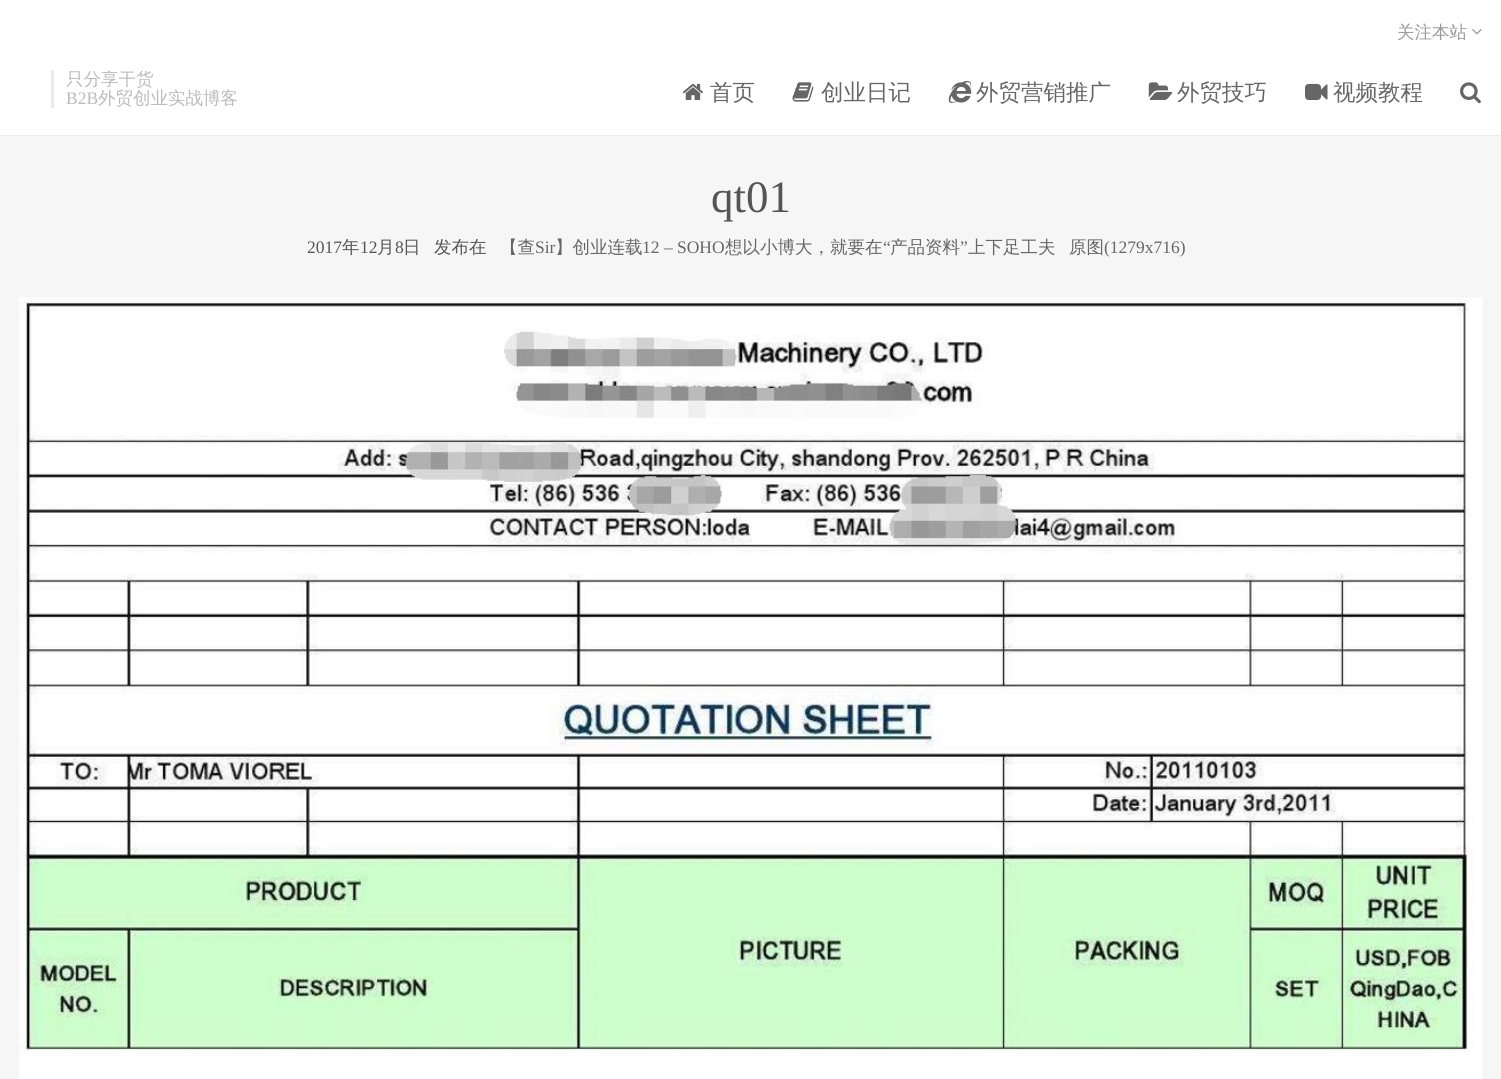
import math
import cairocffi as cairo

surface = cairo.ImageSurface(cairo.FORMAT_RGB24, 1501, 1079)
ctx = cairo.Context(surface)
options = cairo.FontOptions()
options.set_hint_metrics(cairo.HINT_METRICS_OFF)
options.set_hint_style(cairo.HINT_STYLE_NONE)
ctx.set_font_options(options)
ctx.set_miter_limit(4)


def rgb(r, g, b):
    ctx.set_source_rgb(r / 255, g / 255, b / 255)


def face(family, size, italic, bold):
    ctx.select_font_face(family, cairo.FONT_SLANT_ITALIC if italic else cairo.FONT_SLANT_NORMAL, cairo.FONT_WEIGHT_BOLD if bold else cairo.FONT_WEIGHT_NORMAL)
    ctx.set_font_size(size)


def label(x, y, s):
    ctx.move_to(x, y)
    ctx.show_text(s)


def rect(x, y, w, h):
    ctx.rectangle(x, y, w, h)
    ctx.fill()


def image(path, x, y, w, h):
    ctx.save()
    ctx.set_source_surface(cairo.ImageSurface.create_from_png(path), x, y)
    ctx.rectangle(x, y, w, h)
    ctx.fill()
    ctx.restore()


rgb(246, 246, 246)
ctx.paint()
rgb(255, 255, 255)
rect(0, 0, 1501, 135)
rgb(235, 235, 235)
rect(0, 135, 1501, 1)
face('WenQuanYi Zen Hei Medium', 17.5, 0, 0)
rgb(153, 153, 153)
label(1397, 38, '关注本站')
image('image0.png', 1472, 29, 10, 6)
rgb(234, 234, 234)
rect(51, 70, 3, 38)
rgb(187, 187, 187)
label(66, 85, '只分享干货')
face('Liberation Serif', 17.5, 0, 0)
label(66, 104, 'B2B')
face('WenQuanYi Zen Hei Medium', 17.5, 0, 0)
label(98, 104, '外贸创业实战博客')
image('image1.png', 682, 83, 21, 17)
face('WenQuanYi Zen Hei Medium', 22.5, 0, 0)
rgb(102, 102, 102)
label(710, 100, '首页')
image('image2.png', 792, 82, 22, 20)
label(821, 100, '创业日记')
image('image3.png', 948, 80, 24, 23)
label(976, 100, '外贸营销推广')
image('image4.png', 1148, 82, 25, 18)
label(1177, 100, '外贸技巧')
image('image5.png', 1305, 83, 23, 17)
label(1333, 100, '视频教程')
image('image6.png', 1460, 82, 21, 22)
face('Liberation Serif', 45, 0, 0)
rgb(85, 85, 85)
label(711, 212, 'qt01')
face('Liberation Serif', 17.5, 0, 0)
label(307, 253, '2017')
face('WenQuanYi Zen Hei Medium', 17.5, 0, 0)
label(342, 253, '年')
face('Liberation Serif', 17.5, 0, 0)
label(360, 253, '12')
face('WenQuanYi Zen Hei Medium', 17.5, 0, 0)
label(377, 253, '月')
face('Liberation Serif', 17.5, 0, 0)
label(395, 253, '8')
face('WenQuanYi Zen Hei Medium', 17.5, 0, 0)
label(403, 253, '日')
label(434, 253, '发布在')
rgb(102, 102, 102)
label(500, 253, '【查')
face('Liberation Serif', 17.5, 0, 0)
label(535, 253, 'Sir')
face('WenQuanYi Zen Hei Medium', 17.5, 0, 0)
label(555, 253, '】创业连载')
face('Liberation Serif', 17.5, 0, 0)
label(642, 253, '12 – SOHO')
face('WenQuanYi Zen Hei Medium', 17.5, 0, 0)
label(725, 253, '想以小博大，就要在')
face('Liberation Serif', 17.5, 0, 0)
label(883, 253, '“')
face('WenQuanYi Zen Hei Medium', 17.5, 0, 0)
label(890, 253, '产品资料')
face('Liberation Serif', 17.5, 0, 0)
label(960, 253, '”')
face('WenQuanYi Zen Hei Medium', 17.5, 0, 0)
label(968, 253, '上下足工夫')
label(1069, 253, '原图')
face('Liberation Serif', 17.5, 0, 0)
label(1104, 253, '(1279x716)')
image('image7.png', 19, 297, 1464, 782)
surface.write_to_png('render.png')
